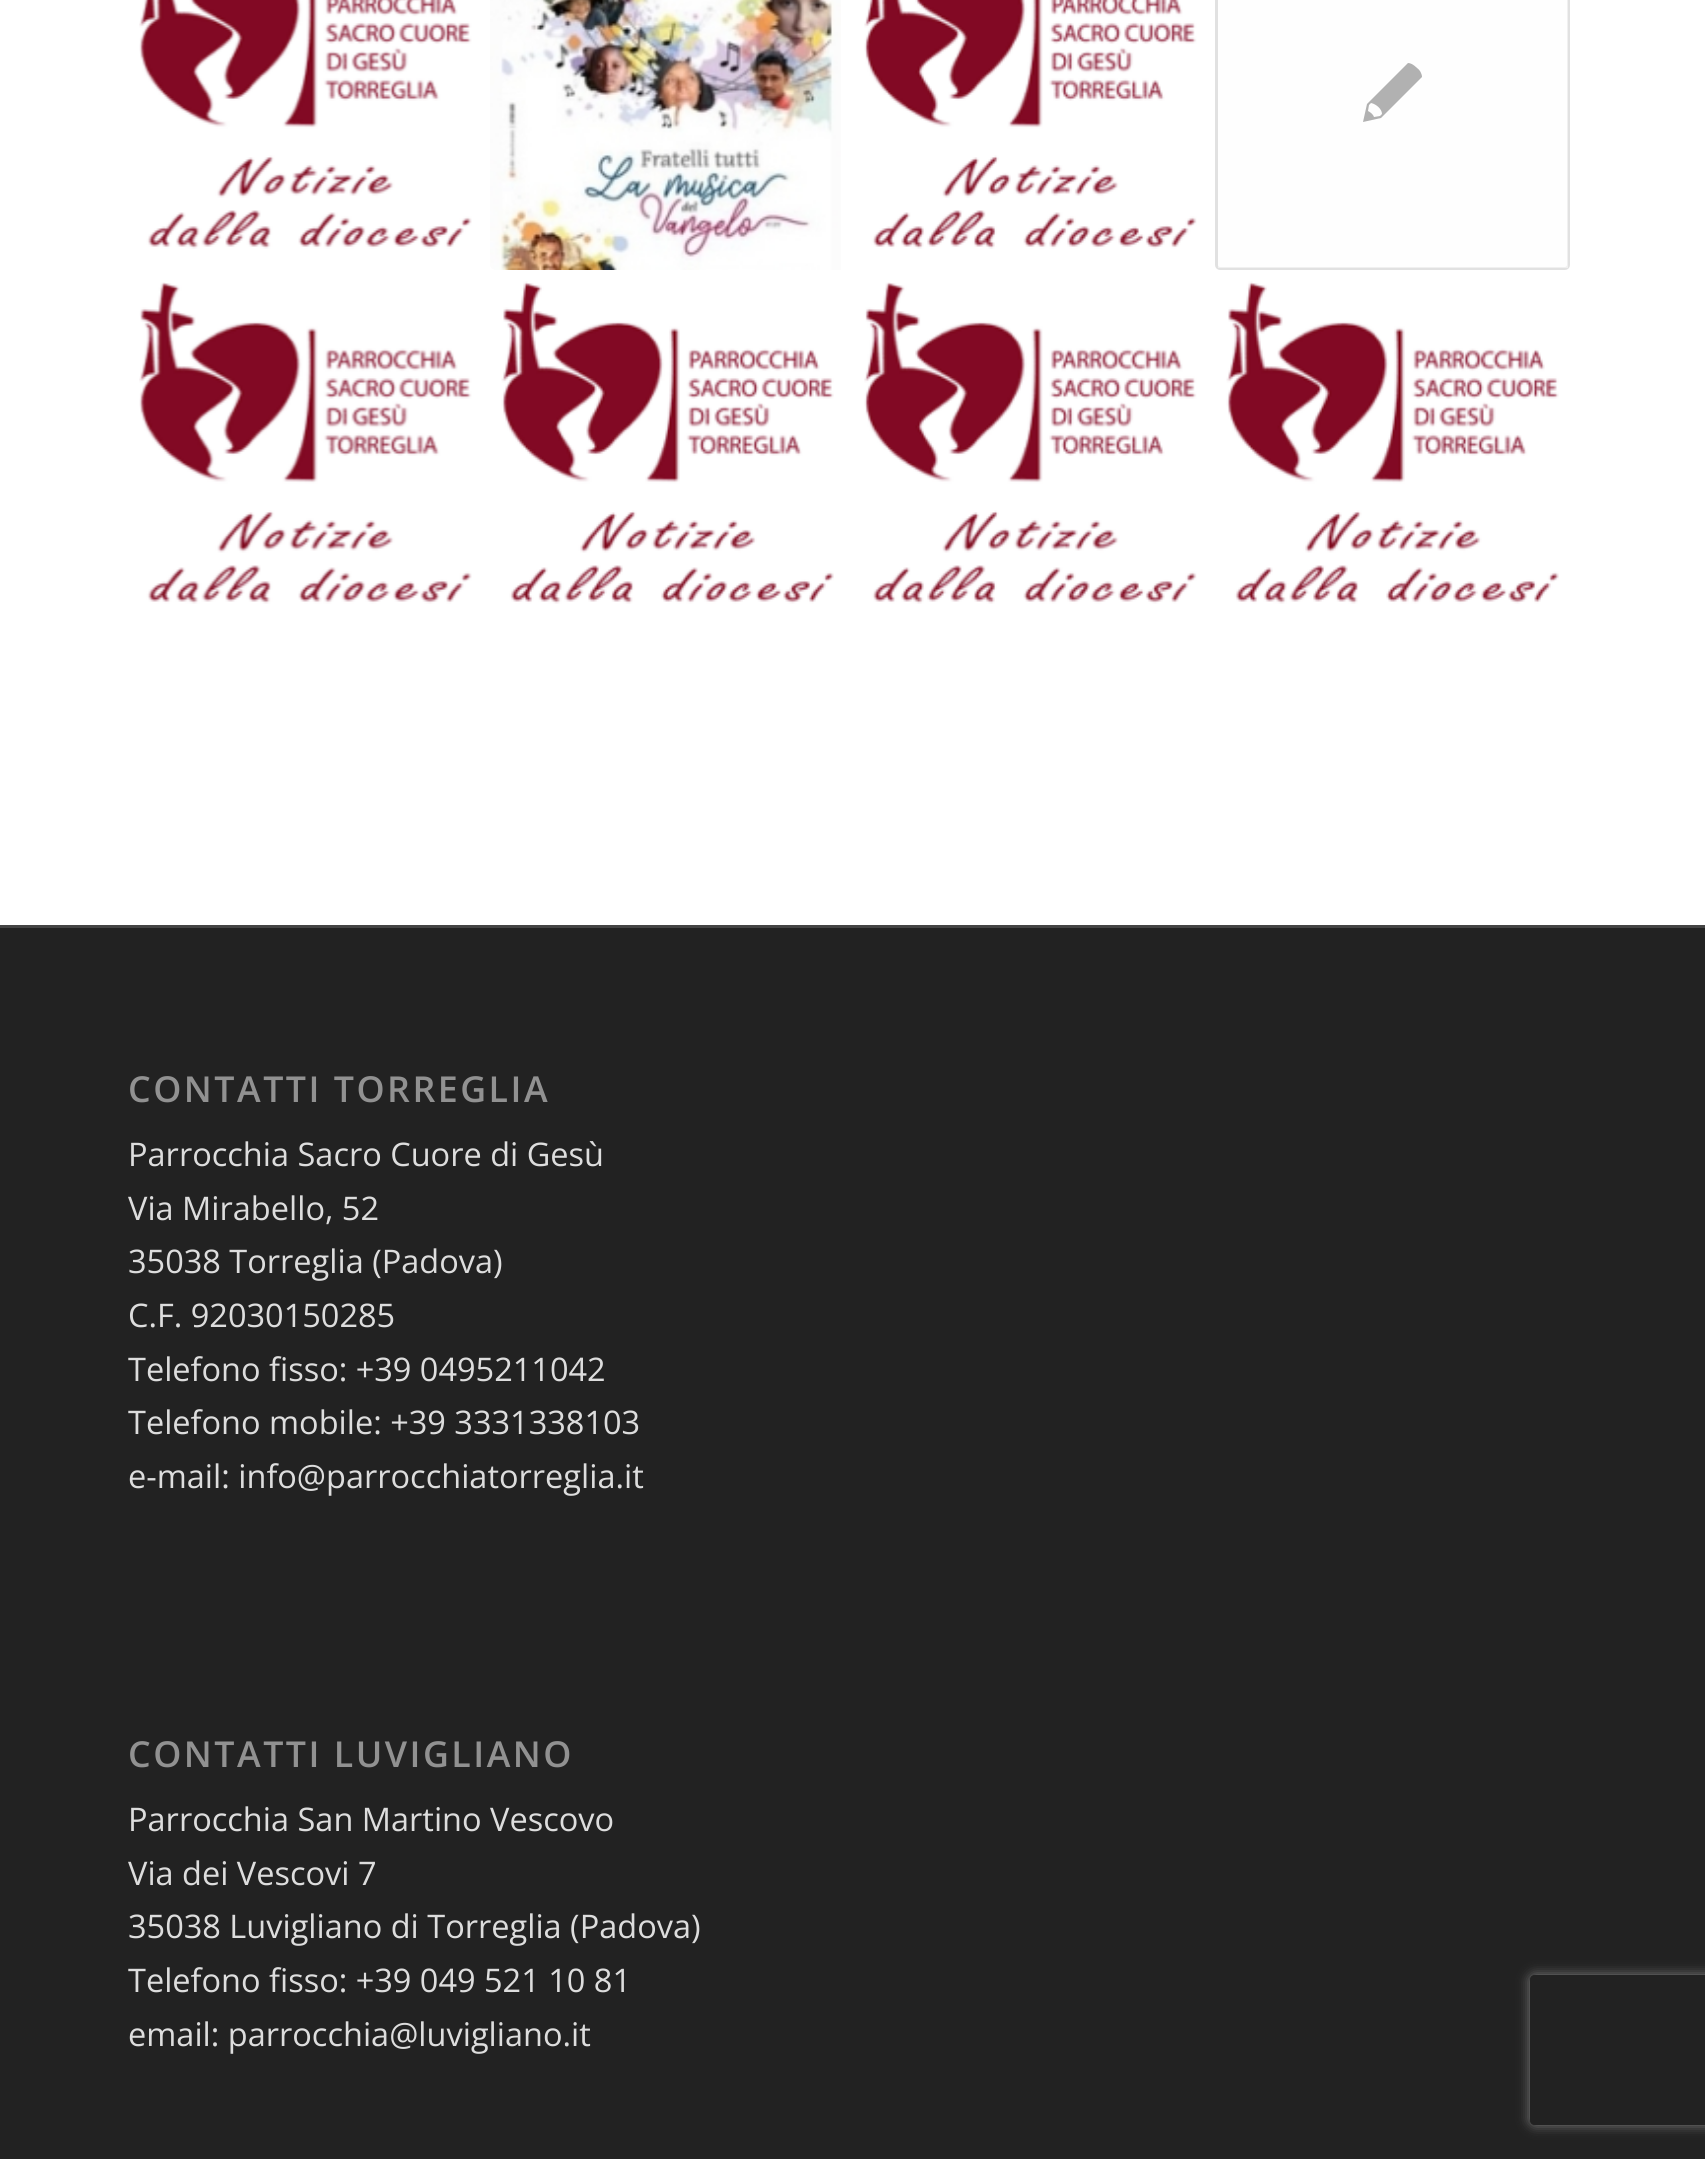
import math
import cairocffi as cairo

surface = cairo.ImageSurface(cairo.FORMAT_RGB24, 1705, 2159)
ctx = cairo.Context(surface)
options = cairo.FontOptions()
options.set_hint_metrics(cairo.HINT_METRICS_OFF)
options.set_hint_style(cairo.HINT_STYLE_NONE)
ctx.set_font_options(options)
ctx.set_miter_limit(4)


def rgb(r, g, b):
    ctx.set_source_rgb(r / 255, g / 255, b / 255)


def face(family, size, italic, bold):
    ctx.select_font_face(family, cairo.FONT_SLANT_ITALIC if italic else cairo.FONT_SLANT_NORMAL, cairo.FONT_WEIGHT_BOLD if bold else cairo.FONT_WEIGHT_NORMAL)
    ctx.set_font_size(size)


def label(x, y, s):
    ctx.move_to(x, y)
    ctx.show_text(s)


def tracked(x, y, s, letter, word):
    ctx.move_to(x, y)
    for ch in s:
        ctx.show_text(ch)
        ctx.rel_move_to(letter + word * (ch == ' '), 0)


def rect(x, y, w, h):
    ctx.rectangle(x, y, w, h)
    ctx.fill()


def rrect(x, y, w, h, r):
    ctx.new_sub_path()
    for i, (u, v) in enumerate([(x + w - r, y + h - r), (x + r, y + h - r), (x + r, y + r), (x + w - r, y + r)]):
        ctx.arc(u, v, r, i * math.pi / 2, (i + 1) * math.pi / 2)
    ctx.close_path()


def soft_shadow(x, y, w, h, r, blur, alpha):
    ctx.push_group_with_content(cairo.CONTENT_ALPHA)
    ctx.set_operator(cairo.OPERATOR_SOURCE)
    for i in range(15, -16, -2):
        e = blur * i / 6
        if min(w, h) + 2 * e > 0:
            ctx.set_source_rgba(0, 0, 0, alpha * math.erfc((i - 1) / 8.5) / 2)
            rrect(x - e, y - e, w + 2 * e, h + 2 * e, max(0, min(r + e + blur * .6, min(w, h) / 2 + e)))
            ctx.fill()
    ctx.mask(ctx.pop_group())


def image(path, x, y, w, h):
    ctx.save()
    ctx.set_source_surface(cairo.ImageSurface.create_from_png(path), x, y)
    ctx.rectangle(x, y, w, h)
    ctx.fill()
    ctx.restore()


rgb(255, 255, 255)
ctx.paint()
image('image0.png', 139, 0, 333, 249)
image('image1.png', 490, 0, 351, 270)
image('image2.png', 864, 0, 333, 249)
rgb(252, 252, 252)
rrect(1216.5, -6.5, 352, 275, 3.5)
ctx.fill_preserve()
rgb(225, 225, 225)
ctx.set_line_width(3)
ctx.stroke()
ctx.set_source_rgba(1, 1, 1, 0.5)
rect(1218, 0, 350, 268)
rgb(177, 177, 177)
ctx.new_path()
ctx.move_to(1417, 68)
ctx.curve_to(1420, 70, 1422, 74, 1422, 77)
ctx.line_to(1381, 118)
ctx.line_to(1363, 122)
ctx.line_to(1367, 104)
ctx.line_to(1408, 63)
ctx.curve_to(1410, 63, 1413, 64, 1417, 68)
ctx.close_path()
ctx.move_to(1380, 116)
ctx.line_to(1382, 114)
ctx.curve_to(1382, 109, 1376, 104, 1371, 103)
ctx.line_to(1369, 105)
ctx.line_to(1368, 111)
ctx.curve_to(1370, 112, 1373, 114, 1374, 117)
ctx.close_path()
ctx.fill()
image('image3.png', 139, 282, 333, 322)
image('image4.png', 501, 281, 333, 323)
image('image5.png', 864, 282, 333, 322)
image('image4.png', 1226, 281, 333, 323)
rgb(34, 34, 34)
rect(0, 928, 1705, 1231)
rgb(68, 68, 68)
rect(0, 925, 1705, 3)
face('Open Sans SemiBold', 35.75, 0, 0)
rgb(145, 145, 145)
tracked(128, 1102, 'CONTATTI TORREGLIA', 2.5, 0)
face('Open Sans', 32.5, 0, 0)
rgb(221, 221, 221)
label(128, 1166, 'Parrocchia Sacro Cuore di Gesù')
label(128, 1220, 'Via Mirabello, 52')
label(128, 1273, '35038 Torreglia (Padova)')
label(128, 1327, 'C.F. 92030150285')
label(128, 1381, 'Telefono fisso: +39 0495211042')
label(128, 1434, 'Telefono mobile: +39 3331338103')
label(128, 1488, 'e-mail: info@parrocchiatorreglia.it')
face('Open Sans SemiBold', 35.75, 0, 0)
rgb(145, 145, 145)
tracked(128, 1767, 'CONTATTI LUVIGLIANO', 2.5, 0)
face('Open Sans', 32.5, 0, 0)
rgb(221, 221, 221)
label(128, 1831, 'Parrocchia San Martino Vescovo')
label(128, 1885, 'Via dei Vescovi 7')
label(128, 1938, '35038 Luvigliano di Torreglia (Padova)')
label(128, 1992, 'Telefono fisso: +39 049 521 10 81')
label(128, 2046, 'email: parrocchia@luvigliano.it')
ctx.save()
ctx.set_fill_rule(cairo.FILL_RULE_EVEN_ODD)
ctx.new_path()
ctx.move_to(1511, 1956)
ctx.line_to(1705, 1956)
ctx.line_to(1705, 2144)
ctx.line_to(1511, 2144)
ctx.close_path()
ctx.move_to(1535, 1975)
ctx.line_to(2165, 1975)
ctx.curve_to(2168, 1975, 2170, 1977, 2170, 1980)
ctx.line_to(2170, 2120)
ctx.curve_to(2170, 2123, 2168, 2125, 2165, 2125)
ctx.line_to(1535, 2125)
ctx.curve_to(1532, 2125, 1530, 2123, 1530, 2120)
ctx.line_to(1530, 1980)
ctx.curve_to(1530, 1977, 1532, 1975, 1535, 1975)
ctx.close_path()
ctx.clip()
rgb(128, 128, 128)
soft_shadow(1530, 1975, 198, 150, 5, 6, 1)
ctx.restore()
surface.write_to_png('render.png')
